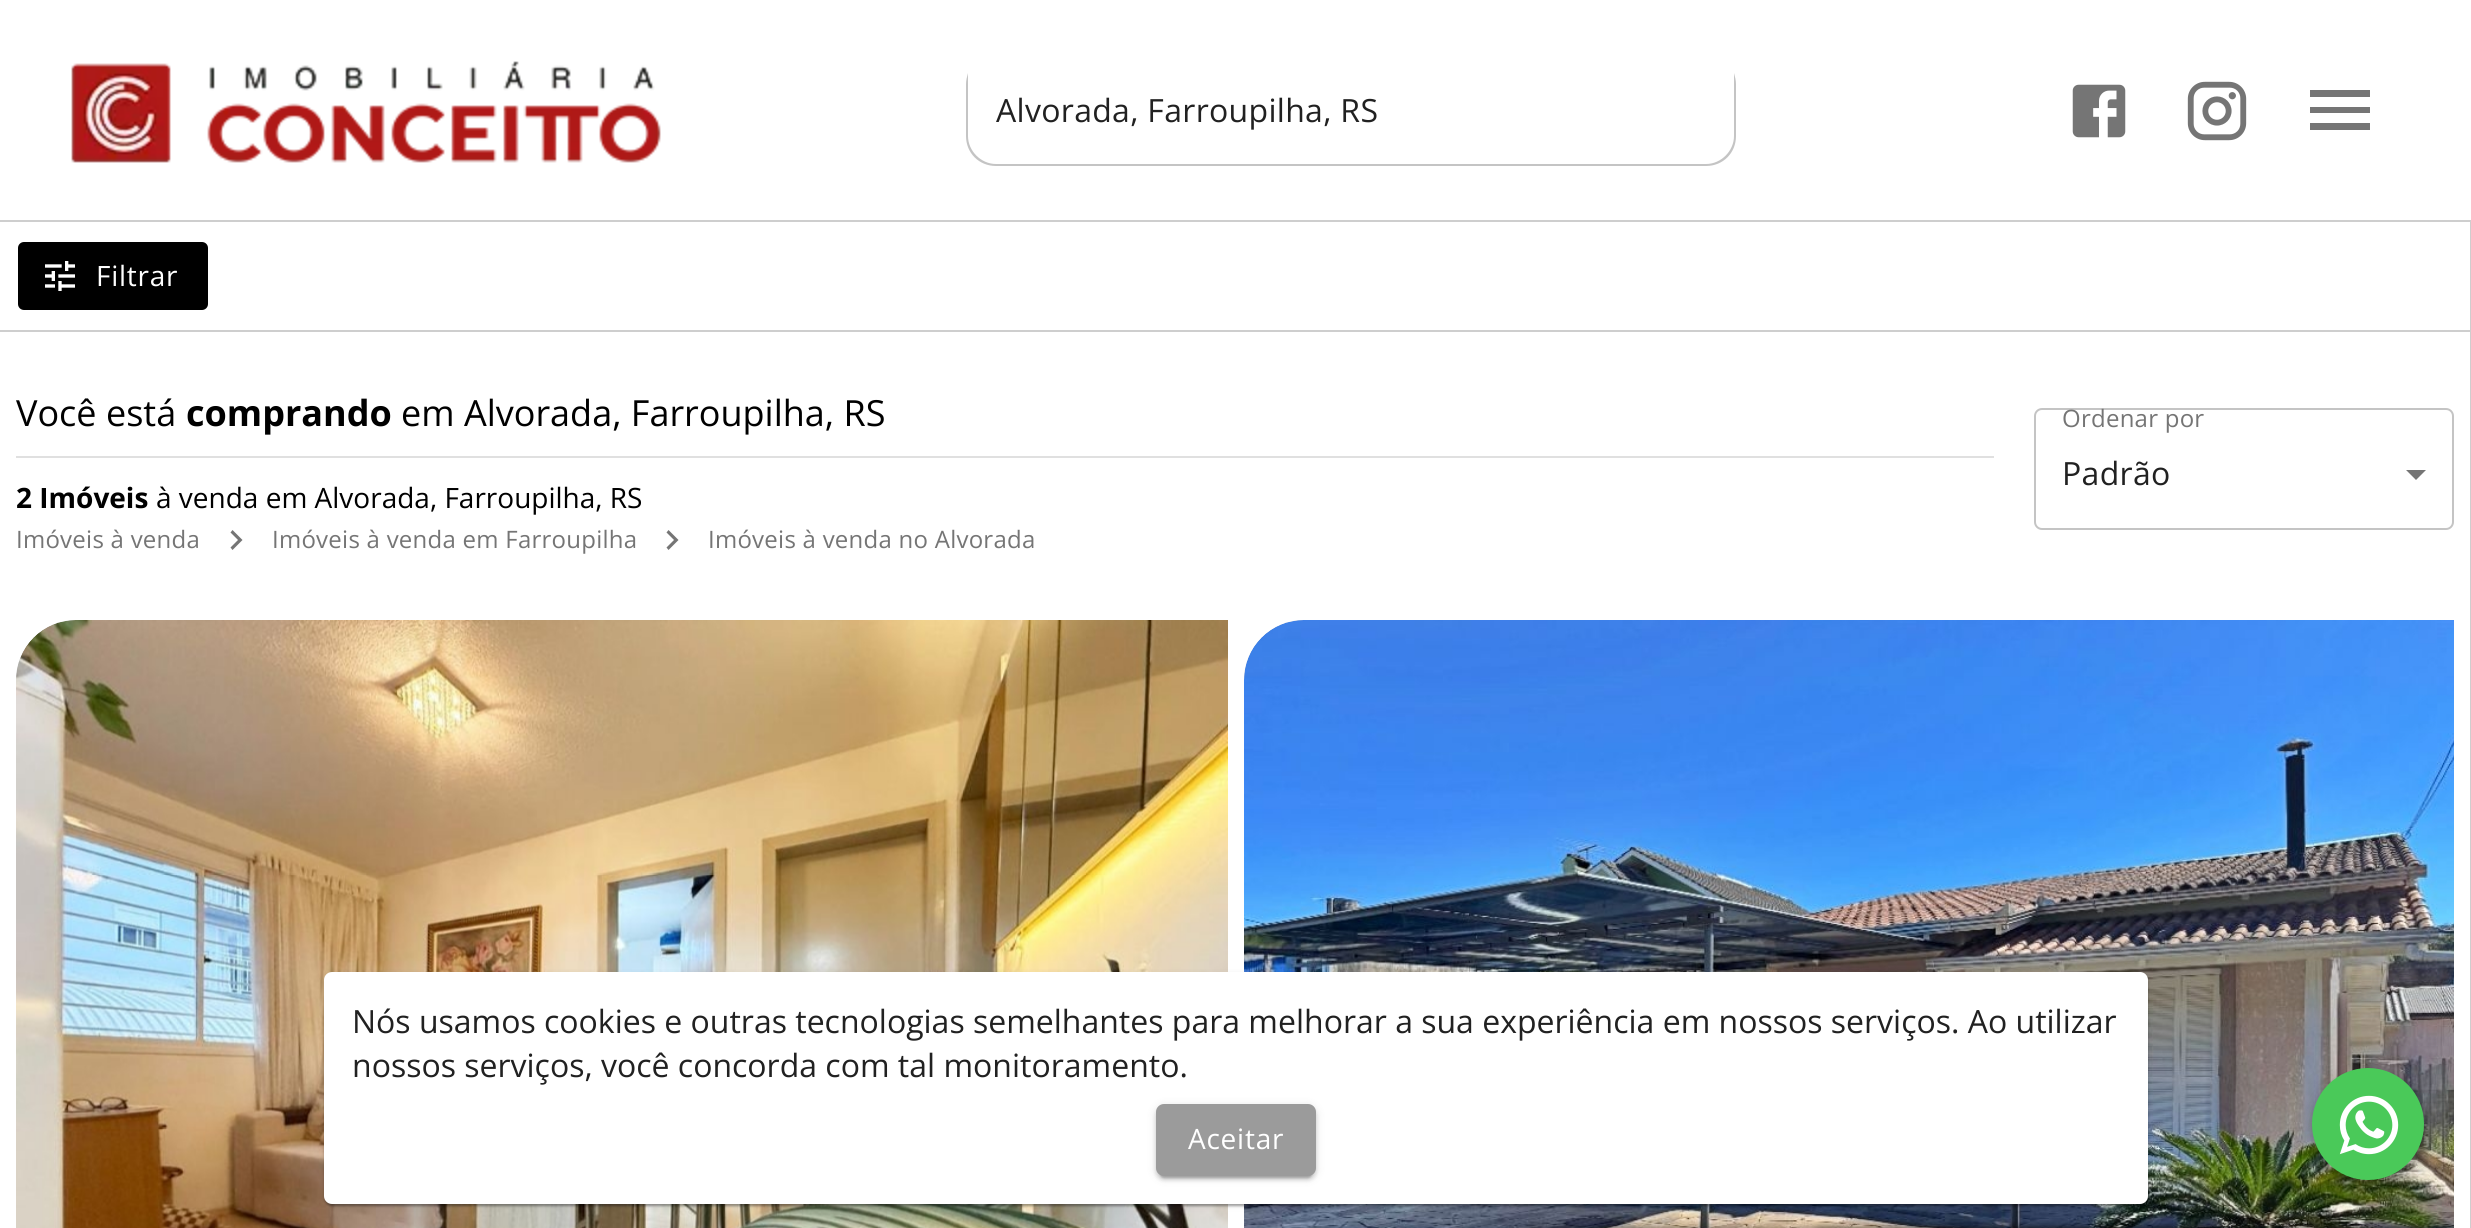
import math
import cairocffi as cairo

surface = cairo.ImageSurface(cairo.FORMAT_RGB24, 2471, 1228)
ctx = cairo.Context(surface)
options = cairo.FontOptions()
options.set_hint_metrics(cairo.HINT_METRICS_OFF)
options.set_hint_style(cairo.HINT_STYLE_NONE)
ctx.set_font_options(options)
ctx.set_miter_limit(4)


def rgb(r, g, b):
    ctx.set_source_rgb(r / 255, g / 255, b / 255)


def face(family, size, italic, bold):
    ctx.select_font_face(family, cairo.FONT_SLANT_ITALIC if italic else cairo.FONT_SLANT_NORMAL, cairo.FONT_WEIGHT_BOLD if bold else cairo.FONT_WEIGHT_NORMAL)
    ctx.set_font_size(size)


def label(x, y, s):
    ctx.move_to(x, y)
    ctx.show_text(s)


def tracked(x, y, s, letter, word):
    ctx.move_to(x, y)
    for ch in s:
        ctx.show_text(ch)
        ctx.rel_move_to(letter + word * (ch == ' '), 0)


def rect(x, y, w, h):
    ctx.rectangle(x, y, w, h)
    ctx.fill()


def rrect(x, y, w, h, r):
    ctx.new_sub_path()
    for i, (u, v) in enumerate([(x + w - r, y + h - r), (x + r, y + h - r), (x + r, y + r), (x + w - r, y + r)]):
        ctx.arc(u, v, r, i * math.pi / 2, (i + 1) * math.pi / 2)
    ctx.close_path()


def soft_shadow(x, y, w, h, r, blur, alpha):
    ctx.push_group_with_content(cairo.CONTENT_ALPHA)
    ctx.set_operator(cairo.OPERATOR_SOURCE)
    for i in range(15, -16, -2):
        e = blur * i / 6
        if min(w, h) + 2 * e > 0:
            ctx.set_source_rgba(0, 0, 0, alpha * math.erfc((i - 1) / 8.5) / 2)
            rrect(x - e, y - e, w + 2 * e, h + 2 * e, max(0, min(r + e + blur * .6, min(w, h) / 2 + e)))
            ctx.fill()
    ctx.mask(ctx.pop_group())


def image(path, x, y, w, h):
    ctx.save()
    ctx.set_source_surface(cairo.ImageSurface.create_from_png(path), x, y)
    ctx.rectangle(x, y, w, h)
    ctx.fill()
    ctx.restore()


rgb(255, 255, 255)
ctx.paint()
image('image0.png', 71, 61, 590, 102)
face('Open Sans', 32, 0, 0)
rgb(33, 33, 33)
tracked(996, 122, 'Alvorada, Farroupilha, RS', 0.3, 0)
rgb(196, 196, 196)
ctx.new_path()
ctx.move_to(966, 84)
ctx.line_to(966, 136)
ctx.curve_to(966, 153, 979, 166, 996, 166)
ctx.line_to(1706, 166)
ctx.curve_to(1723, 166, 1736, 153, 1736, 136)
ctx.line_to(1736, 84)
ctx.curve_to(1736, 80, 1735, 77, 1734, 73)
ctx.line_to(1734, 136)
ctx.curve_to(1734, 151, 1721, 164, 1706, 164)
ctx.line_to(996, 164)
ctx.curve_to(981, 164, 968, 151, 968, 136)
ctx.line_to(968, 73)
ctx.curve_to(967, 77, 966, 80, 966, 84)
ctx.close_path()
ctx.fill()
image('image1.png', 2072, 84, 54, 54)
image('image2.png', 2187, 81, 60, 60)
rgb(117, 117, 117)
ctx.new_path()
ctx.move_to(2310, 130)
ctx.line_to(2370, 130)
ctx.line_to(2370, 123)
ctx.line_to(2310, 123)
ctx.close_path()
ctx.move_to(2310, 113)
ctx.line_to(2370, 113)
ctx.line_to(2370, 107)
ctx.line_to(2310, 107)
ctx.close_path()
ctx.move_to(2310, 90)
ctx.line_to(2310, 97)
ctx.line_to(2370, 97)
ctx.line_to(2370, 90)
ctx.close_path()
ctx.fill()
rgb(206, 206, 206)
rect(0, 220, 2471, 2)
rect(2470, 222, 1, 1006)
rect(0, 330, 2470, 2)
rgb(0, 0, 0)
rrect(17, 241, 192, 70, 7)
ctx.fill_preserve()
rgb(255, 255, 255)
ctx.stroke()
image('image3.png', 45, 261, 30, 30)
face('Open Sans', 28, 0, 0)
tracked(96, 286, 'Filtrar', 0.75, 0)
face('Open Sans', 36, 0, 0)
rgb(0, 0, 0)
label(16, 426, 'Você está')
face('Open Sans', 36, 0, 1)
label(186, 426, 'comprando')
face('Open Sans', 36, 0, 0)
label(401, 426, 'em Alvorada, Farroupilha, RS')
rgb(224, 224, 224)
rect(16, 456, 1978, 2)
face('Open Sans', 28, 0, 1)
rgb(0, 0, 0)
label(16, 508, '2 Imóveis')
face('Open Sans', 28, 0, 0)
label(156, 508, 'à venda em Alvorada, Farroupilha, RS')
face('Open Sans', 24, 0, 0)
rgb(117, 117, 117)
tracked(16, 548, 'Imóveis à venda', 0.25, 0)
ctx.new_path()
ctx.move_to(232.5, 530)
ctx.line_to(230.5, 532.5)
ctx.line_to(238, 540)
ctx.line_to(230.5, 547.5)
ctx.line_to(232.5, 550)
ctx.line_to(242.5, 540)
ctx.close_path()
ctx.fill()
tracked(272, 548, 'Imóveis à venda em Farroupilha', 0.25, 0)
ctx.new_path()
ctx.move_to(668.5, 530)
ctx.line_to(666.5, 532.5)
ctx.line_to(674, 540)
ctx.line_to(666.5, 547.5)
ctx.line_to(668.5, 550)
ctx.line_to(678.5, 540)
ctx.close_path()
ctx.fill()
tracked(708, 548, 'Imóveis à venda no Alvorada', 0.25, 0)
ctx.new_path()
ctx.move_to(2406, 470)
ctx.line_to(2416, 480)
ctx.line_to(2426, 470)
ctx.close_path()
ctx.fill()
rrect(2035, 409, 418, 120, 7)
rgb(196, 196, 196)
ctx.stroke()
rgb(117, 117, 117)
tracked(2062, 427, 'Ordenar por', 0.25, 0)
face('Open Sans', 32, 0, 0)
rgb(33, 33, 33)
tracked(2062, 485, 'Padrão', 0.3, 0)
rgb(215, 215, 215)
ctx.new_path()
ctx.move_to(76, 620)
ctx.line_to(1228, 620)
ctx.line_to(1228, 1228)
ctx.line_to(16, 1228)
ctx.line_to(16, 680)
ctx.curve_to(16, 647, 43, 620, 76, 620)
ctx.close_path()
ctx.fill()
image('image4.png', 16, 620, 1212, 608)
ctx.new_path()
ctx.move_to(1304, 620)
ctx.line_to(2454, 620)
ctx.line_to(2454, 1228)
ctx.line_to(1244, 1228)
ctx.line_to(1244, 680)
ctx.curve_to(1244, 647, 1271, 620, 1304, 620)
ctx.close_path()
ctx.fill()
image('image5.png', 1244, 620, 1210, 608)
rgb(0, 0, 0)
soft_shadow(324, 974, 1824, 232, 8, 3, 0.12)
soft_shadow(324, 974, 1824, 232, 8, 1, 0.14)
soft_shadow(326, 978, 1820, 228, 6, 1, 0.2)
rgb(255, 255, 255)
rrect(324, 972, 1824, 232, 8)
ctx.fill()
rgb(33, 33, 33)
label(352, 1033, 'Nós usamos cookies e outras tecnologias semelhantes para melhorar a sua experiência em nossos serviços. Ao utilizar')
label(352, 1077, 'nossos serviços, você concorda com tal monitoramento.')
rgb(0, 0, 0)
soft_shadow(1156, 1106, 160, 72, 8, 5, 0.12)
soft_shadow(1156, 1108, 160, 72, 8, 2, 0.14)
soft_shadow(1160, 1114, 152, 64, 4, 1, 0.2)
rgb(155, 155, 155)
rrect(1156, 1104, 160, 72, 8)
ctx.fill()
face('Open Sans', 28, 0, 0)
rgb(255, 255, 255)
tracked(1188, 1149, 'Aceitar', 0.75, 0)
rgb(0, 0, 0)
soft_shadow(2312, 1070, 112, 112, 56, 18, 0.12)
soft_shadow(2312, 1080, 112, 112, 56, 10, 0.14)
soft_shadow(2314, 1076, 108, 108, 54, 5, 0.2)
rgb(74, 201, 89)
ctx.arc(2368, 1124, 56, 0, 2 * math.pi)
ctx.fill()
image('image6.png', 2339, 1095, 60, 60)
rgb(0, 0, 0)
soft_shadow(1812, 1228, 614, 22, 10, 4, 0.4)
soft_shadow(1526, 1228, 900, 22, 10, 4, 0.4)
surface.write_to_png('render.png')
